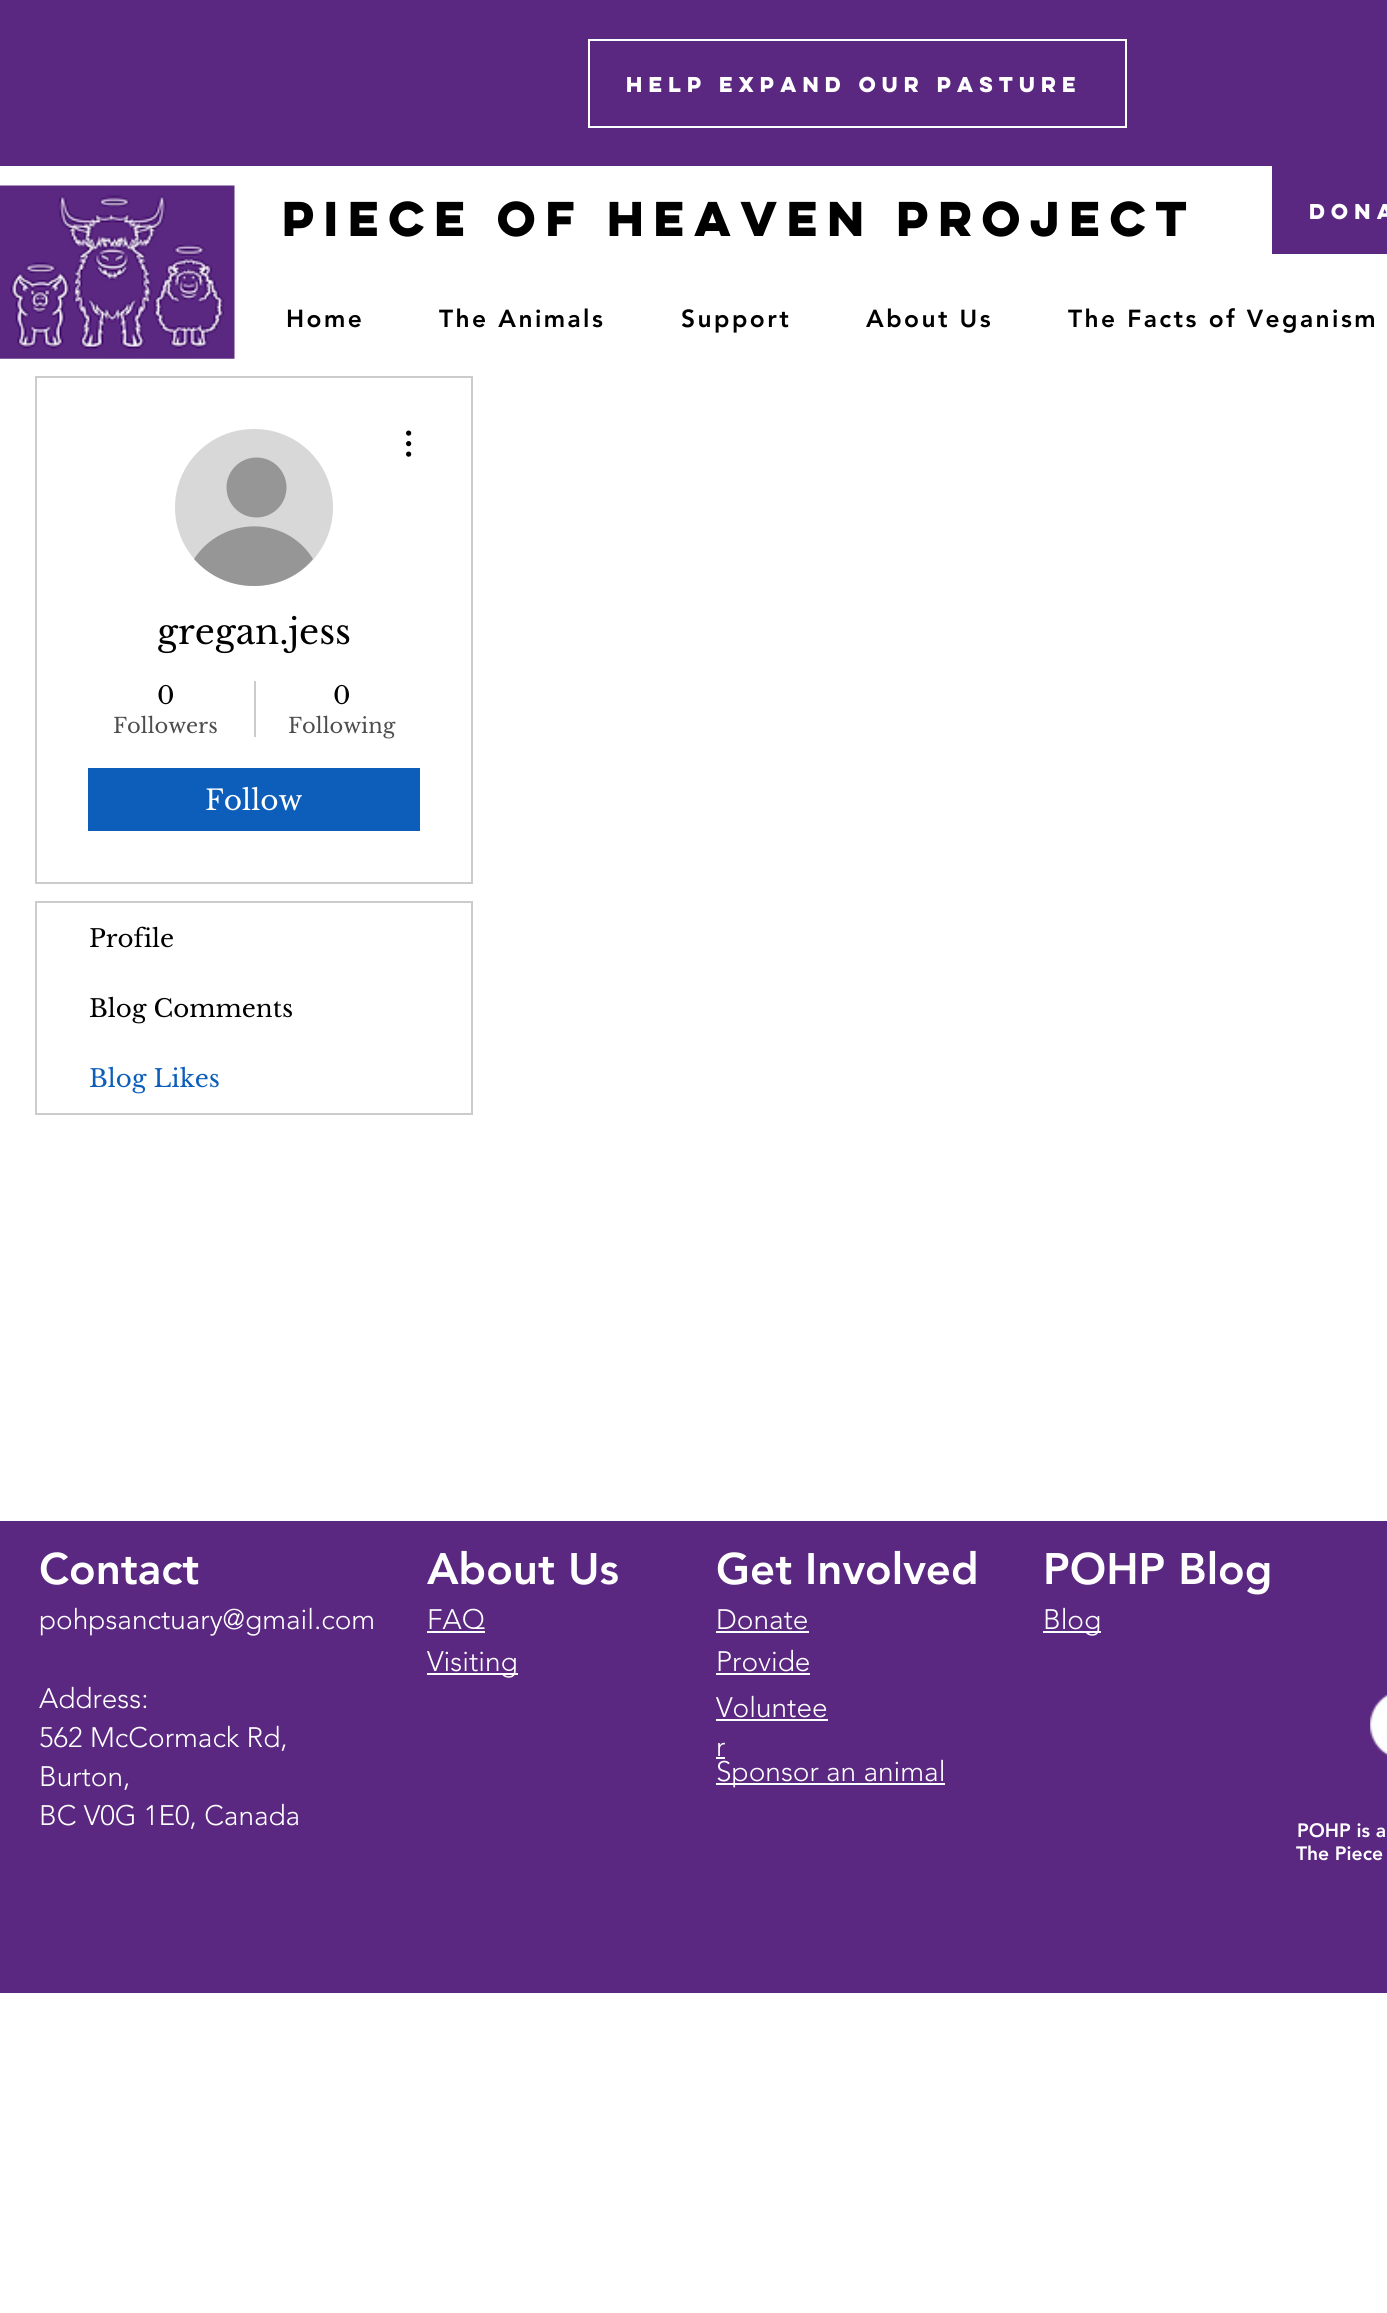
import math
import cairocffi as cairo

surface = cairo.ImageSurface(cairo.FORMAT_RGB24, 1387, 2313)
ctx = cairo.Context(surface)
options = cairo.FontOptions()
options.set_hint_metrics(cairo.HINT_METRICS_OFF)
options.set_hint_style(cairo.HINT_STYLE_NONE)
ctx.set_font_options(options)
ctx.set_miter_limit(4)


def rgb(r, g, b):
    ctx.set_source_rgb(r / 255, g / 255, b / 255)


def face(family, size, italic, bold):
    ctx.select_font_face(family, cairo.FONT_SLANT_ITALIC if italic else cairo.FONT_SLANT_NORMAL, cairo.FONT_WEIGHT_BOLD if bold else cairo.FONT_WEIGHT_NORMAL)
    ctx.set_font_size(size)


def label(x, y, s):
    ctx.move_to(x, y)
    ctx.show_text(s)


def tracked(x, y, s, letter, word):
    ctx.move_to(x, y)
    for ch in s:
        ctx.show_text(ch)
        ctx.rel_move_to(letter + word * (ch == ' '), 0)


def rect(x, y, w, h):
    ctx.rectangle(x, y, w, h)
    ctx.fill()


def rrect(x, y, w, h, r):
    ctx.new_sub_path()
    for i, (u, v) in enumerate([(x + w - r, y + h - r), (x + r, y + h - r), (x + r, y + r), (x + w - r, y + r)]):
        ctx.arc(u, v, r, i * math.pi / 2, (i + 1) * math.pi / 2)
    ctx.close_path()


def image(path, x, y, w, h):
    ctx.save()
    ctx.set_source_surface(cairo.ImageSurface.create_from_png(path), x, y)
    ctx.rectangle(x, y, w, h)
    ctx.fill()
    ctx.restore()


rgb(255, 255, 255)
ctx.paint()
rgb(90, 39, 129)
rect(0, 0, 1387, 166)
ctx.rectangle(589, 40, 537, 87)
rgb(255, 255, 255)
ctx.stroke()
ctx.save()
ctx.rectangle(627, 70, 455, 28)
ctx.clip()
face('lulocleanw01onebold', 19.25, 0, 1)
tracked(626, 92, 'HELP EXPAND OUR PASTURE', 1.9, 0)
ctx.restore()
image('image0.png', 0, 185, 235, 174)
face('lulocleanw01onebold', 43.75, 0, 1)
rgb(0, 0, 0)
label(282, 236, 'PIECE OF HEAVEN PROJECT')
rgb(90, 39, 129)
rect(1272, 166, 115, 88)
face('lulocleanw01onebold', 19.25, 0, 1)
rgb(255, 255, 255)
tracked(1309, 219, 'DONA', 1.9, 0)
face('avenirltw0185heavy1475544 Black', 24.5, 0, 0)
rgb(0, 0, 0)
tracked(286, 327, 'Home', 2.45, 0)
tracked(439, 327, 'The Animals', 2.45, 0)
tracked(681, 327, 'Support', 2.45, 0)
tracked(866, 327, 'About Us', 2.45, 0)
tracked(1068, 327, 'The Facts of Veganism', 2.45, 0)
ctx.rectangle(36, 377, 436, 506)
rgb(204, 204, 204)
ctx.stroke()
rgb(216, 216, 216)
rrect(175, 429, 158, 157, 78.5)
ctx.fill()
rgb(150, 150, 150)
ctx.arc(256.5, 487.5, 30, 0, 2 * math.pi)
ctx.fill()
ctx.new_path()
ctx.move_to(254, 586)
ctx.curve_to(276, 586, 298, 577, 313, 559)
ctx.curve_to(286, 515, 222, 516, 194, 559)
ctx.curve_to(209, 576, 230, 586, 254, 586)
ctx.close_path()
ctx.fill()
image('image1.png', 406, 430, 6, 27)
face('Libre Baskerville', 35, 0, 0)
rgb(0, 0, 0)
label(157, 644, 'gregan.jess')
face('Libre Baskerville', 24.5, 0, 0)
label(157, 704, '0')
face('Libre Baskerville', 21, 0, 0)
rgb(77, 77, 77)
label(113, 733, 'Followers')
rgb(204, 204, 204)
rect(254, 681, 2, 56)
face('Libre Baskerville', 24.5, 0, 0)
rgb(0, 0, 0)
label(333, 704, '0')
face('Libre Baskerville', 21, 0, 0)
rgb(77, 77, 77)
label(288, 733, 'Following')
rgb(13, 94, 186)
rect(88, 768, 332, 63)
face('Libre Baskerville', 28, 0, 0)
rgb(255, 255, 255)
label(205, 810, 'Follow')
ctx.rectangle(36, 902, 436, 212)
rgb(204, 204, 204)
ctx.stroke()
face('Libre Baskerville', 24.5, 0, 0)
rgb(0, 0, 0)
label(89, 947, 'Profile')
label(89, 1017, 'Blog Comments')
rgb(13, 94, 186)
label(89, 1087, 'Blog Likes')
rgb(90, 39, 129)
rect(0, 1521, 1387, 472)
face('avenirltw0185heavy1475544 Black', 43.75, 0, 0)
rgb(255, 255, 255)
label(39, 1584, 'Contact')
label(427, 1584, 'About Us')
label(716, 1584, 'Get Involved')
label(1043, 1584, 'POHP Blog')
face('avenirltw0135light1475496 Light', 28, 0, 0)
label(39, 1629, 'pohpsanctuary@gmail.com')
label(39, 1708, 'Address:')
label(39, 1747, '562 McCormack Rd,')
label(39, 1786, 'Burton,')
label(39, 1825, 'BC V0G 1E0, Canada')
label(427, 1629, 'FAQ')
rect(427, 1631, 58, 2)
label(716, 1629, 'Donate')
rect(716, 1631, 93, 2)
rect(1043, 1631, 58, 2)
label(1043, 1629, 'Blog')
rect(427, 1673, 91, 2)
label(427, 1671, 'Visiting')
label(716, 1671, 'Provide')
rect(716, 1673, 94, 2)
label(716, 1717, 'Voluntee')
rect(716, 1719, 112, 2)
label(716, 1756, 'r')
rect(716, 1757, 9, 2)
image('image2.png', 1370, 1694, 17, 62)
rect(716, 1783, 229, 2)
label(716, 1781, 'Sponsor an animal')
face('avenirltw0185heavy1475544 Black', 19.25, 0, 0)
label(1297, 1837, 'POHP is a')
label(1296, 1860, 'The Piece')
surface.write_to_png('render.png')
